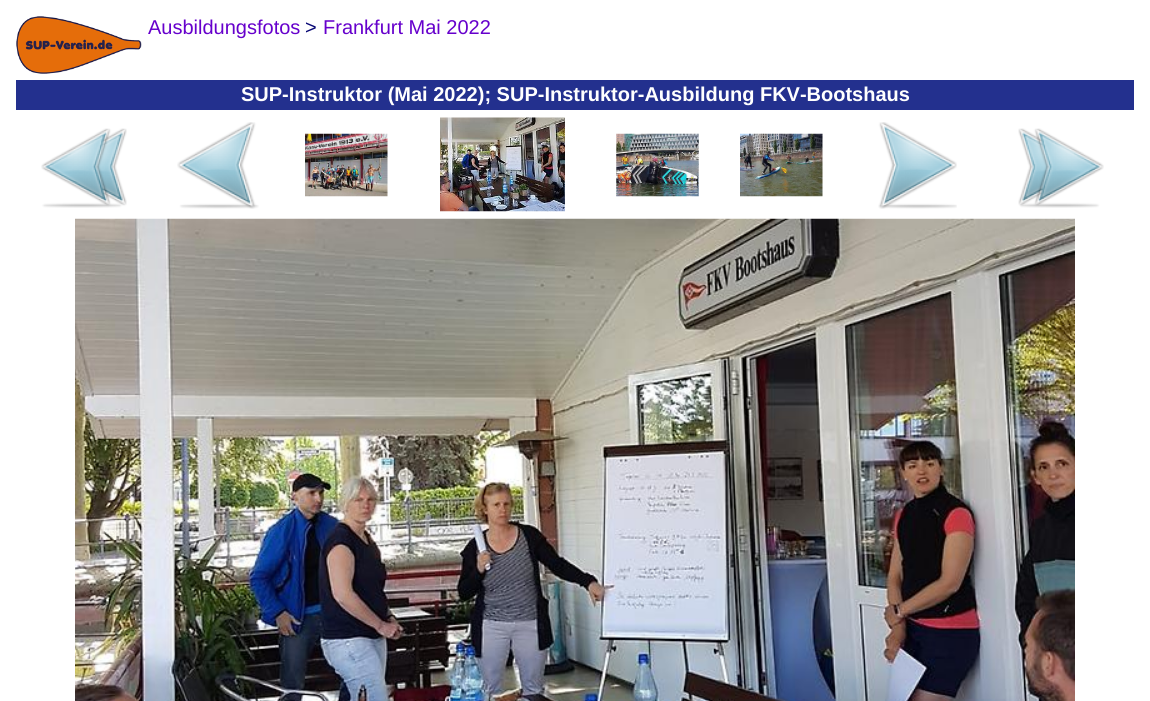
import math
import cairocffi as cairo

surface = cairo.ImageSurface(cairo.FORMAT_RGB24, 1150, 701)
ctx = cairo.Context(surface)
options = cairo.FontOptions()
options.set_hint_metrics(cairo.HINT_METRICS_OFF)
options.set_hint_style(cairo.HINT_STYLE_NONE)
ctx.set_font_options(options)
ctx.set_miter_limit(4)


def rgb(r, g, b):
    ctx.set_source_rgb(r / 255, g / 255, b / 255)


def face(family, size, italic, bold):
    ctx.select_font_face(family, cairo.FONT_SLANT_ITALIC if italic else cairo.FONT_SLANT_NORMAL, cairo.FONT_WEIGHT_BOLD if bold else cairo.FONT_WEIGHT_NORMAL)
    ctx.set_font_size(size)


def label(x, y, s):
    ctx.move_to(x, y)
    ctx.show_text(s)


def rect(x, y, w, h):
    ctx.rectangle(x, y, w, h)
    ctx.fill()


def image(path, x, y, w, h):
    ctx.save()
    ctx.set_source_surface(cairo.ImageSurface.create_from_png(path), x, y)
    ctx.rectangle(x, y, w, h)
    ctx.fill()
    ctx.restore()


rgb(255, 255, 255)
ctx.paint()
image('image0.png', 16, 16, 126, 58)
face('Liberation Sans', 20, 0, 0)
rgb(102, 0, 204)
label(148, 34, 'Ausbildungsfotos')
rgb(8, 8, 117)
label(305, 34, '>')
rgb(102, 0, 204)
label(323, 34, 'Frankfurt Mai 2022')
rgb(35, 48, 142)
rect(16, 80, 1118, 30)
face('Liberation Sans', 20, 0, 1)
rgb(255, 255, 255)
label(241, 101, 'SUP-Instruktor (Mai 2022); SUP-Instruktor-Ausbildung FKV-Bootshaus')
image('image1.png', 41, 128, 86, 80)
image('image2.png', 177, 122, 82, 87)
image('image3.png', 305, 133, 83, 64)
image('image4.png', 440, 117, 125, 95)
image('image5.png', 616, 133, 83, 64)
image('image6.png', 740, 133, 83, 64)
image('image7.png', 878, 122, 79, 87)
image('image8.png', 1018, 128, 86, 80)
image('image9.png', 75, 218, 1000, 483)
surface.write_to_png('render.png')
